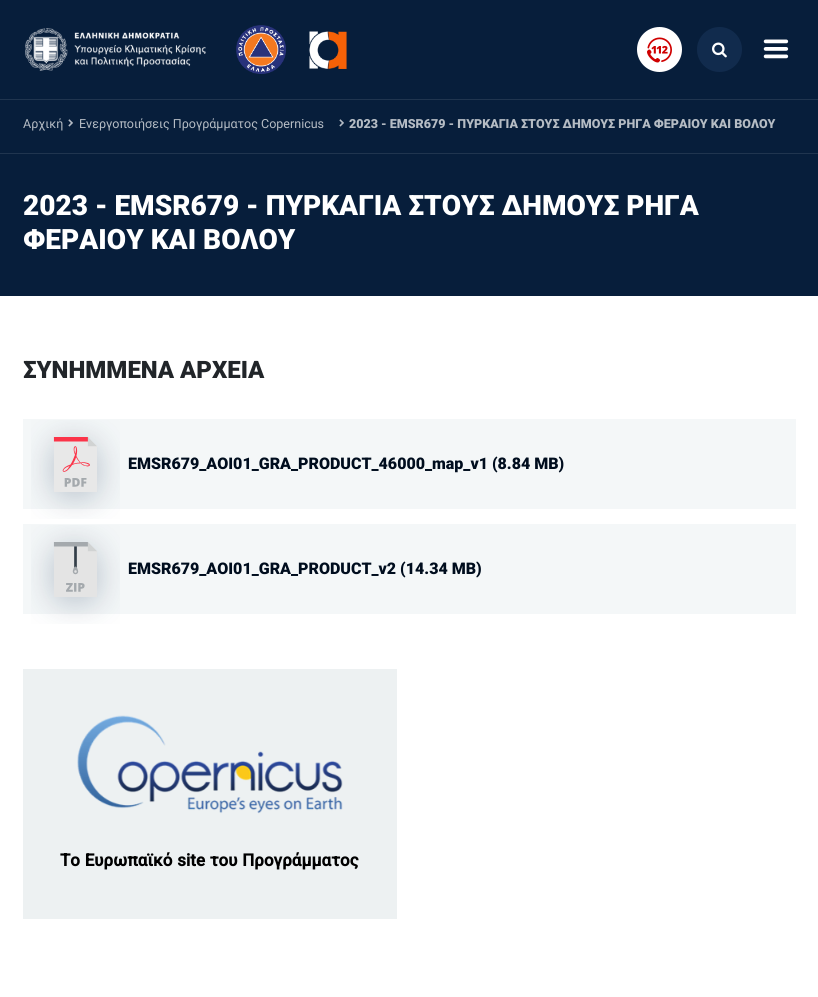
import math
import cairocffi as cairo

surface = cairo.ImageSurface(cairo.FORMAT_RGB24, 818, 997)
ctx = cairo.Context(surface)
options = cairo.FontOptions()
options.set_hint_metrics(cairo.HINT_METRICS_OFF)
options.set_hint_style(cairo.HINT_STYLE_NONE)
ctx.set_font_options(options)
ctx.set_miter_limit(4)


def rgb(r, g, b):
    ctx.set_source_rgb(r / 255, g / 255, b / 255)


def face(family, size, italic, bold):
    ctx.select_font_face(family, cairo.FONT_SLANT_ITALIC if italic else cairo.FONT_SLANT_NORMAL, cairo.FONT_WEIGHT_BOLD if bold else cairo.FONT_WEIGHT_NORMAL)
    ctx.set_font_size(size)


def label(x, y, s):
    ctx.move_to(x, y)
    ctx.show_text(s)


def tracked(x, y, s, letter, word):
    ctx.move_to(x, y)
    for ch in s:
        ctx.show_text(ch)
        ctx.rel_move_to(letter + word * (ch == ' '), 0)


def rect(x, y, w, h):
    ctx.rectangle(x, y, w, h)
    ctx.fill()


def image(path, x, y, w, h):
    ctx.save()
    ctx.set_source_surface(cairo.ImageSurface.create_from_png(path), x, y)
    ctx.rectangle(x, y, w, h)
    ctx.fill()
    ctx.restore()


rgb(255, 255, 255)
ctx.paint()
rgb(7, 30, 59)
rect(0, 0, 818, 99)
image('image0.png', 25, 28, 181, 43)
image('image1.png', 236, 25, 50, 49)
image('image2.png', 309, 31, 38, 38)
rgb(255, 255, 255)
ctx.arc(659.5, 49.5, 22.5, 0, 2 * math.pi)
ctx.fill()
image('image3.png', 647, 37, 25, 26)
rgb(17, 43, 77)
ctx.arc(719.5, 49.5, 22.5, 0, 2 * math.pi)
ctx.fill()
image('image4.png', 712, 42, 15, 16)
image('image5.png', 763, 39, 26, 20)
rgb(7, 30, 59)
rect(0, 100, 818, 196)
rgb(32, 53, 79)
rect(0, 99, 818, 1)
rect(0, 153, 818, 1)
face('Roboto', 12.5, 0, 0)
rgb(181, 188, 196)
label(23, 128, 'Αρχική')
image('image6.png', 68, 119, 5, 8)
label(79, 128, 'Ενεργοποιήσεις Προγράμματος Copernicus')
image('image6.png', 339, 119, 5, 8)
face('Roboto Black', 12.5, 0, 0)
label(349, 128, '2023 - EMSR679 - ΠΥΡΚΑΓΙΑ ΣΤΟΥΣ ΔΗΜΟΥΣ ΡΗΓΑ ΦΕΡΑΙΟΥ ΚΑΙ ΒΟΛΟΥ')
face('Roboto Black', 28, 0, 0)
rgb(255, 255, 255)
label(23, 215, '2023 - EMSR679 - ΠΥΡΚΑΓΙΑ ΣΤΟΥΣ ΔΗΜΟΥΣ ΡΗΓΑ')
label(23, 249, 'ΦΕΡΑΙΟΥ ΚΑΙ ΒΟΛΟΥ')
face('Roboto Black', 24, 0, 0)
rgb(33, 37, 41)
label(23, 378, 'ΣΥΝΗΜΜΕΝΑ ΑΡΧΕΙΑ')
rgb(244, 247, 248)
rect(23, 419, 773, 90)
image('image7.png', 31, 420, 89, 99)
face('Roboto Black', 16, 0, 0)
rgb(0, 13, 30)
label(128, 469, 'EMSR679_AOI01_GRA_PRODUCT_46000_map_v1 (8.84 MB)')
rgb(244, 247, 248)
rect(23, 524, 773, 90)
image('image8.png', 31, 525, 89, 99)
rgb(0, 13, 30)
label(128, 574, 'EMSR679_AOI01_GRA_PRODUCT_v2 (14.34 MB)')
rgb(237, 241, 242)
rect(23, 669, 374, 250)
image('image9.png', 77, 715, 266, 99)
face('Roboto', 17, 0, 1)
rgb(0, 0, 0)
tracked(60, 866, 'Το Ευρωπαϊκό site του Προγράμματος', 0, 0.5)
surface.write_to_png('render.png')
